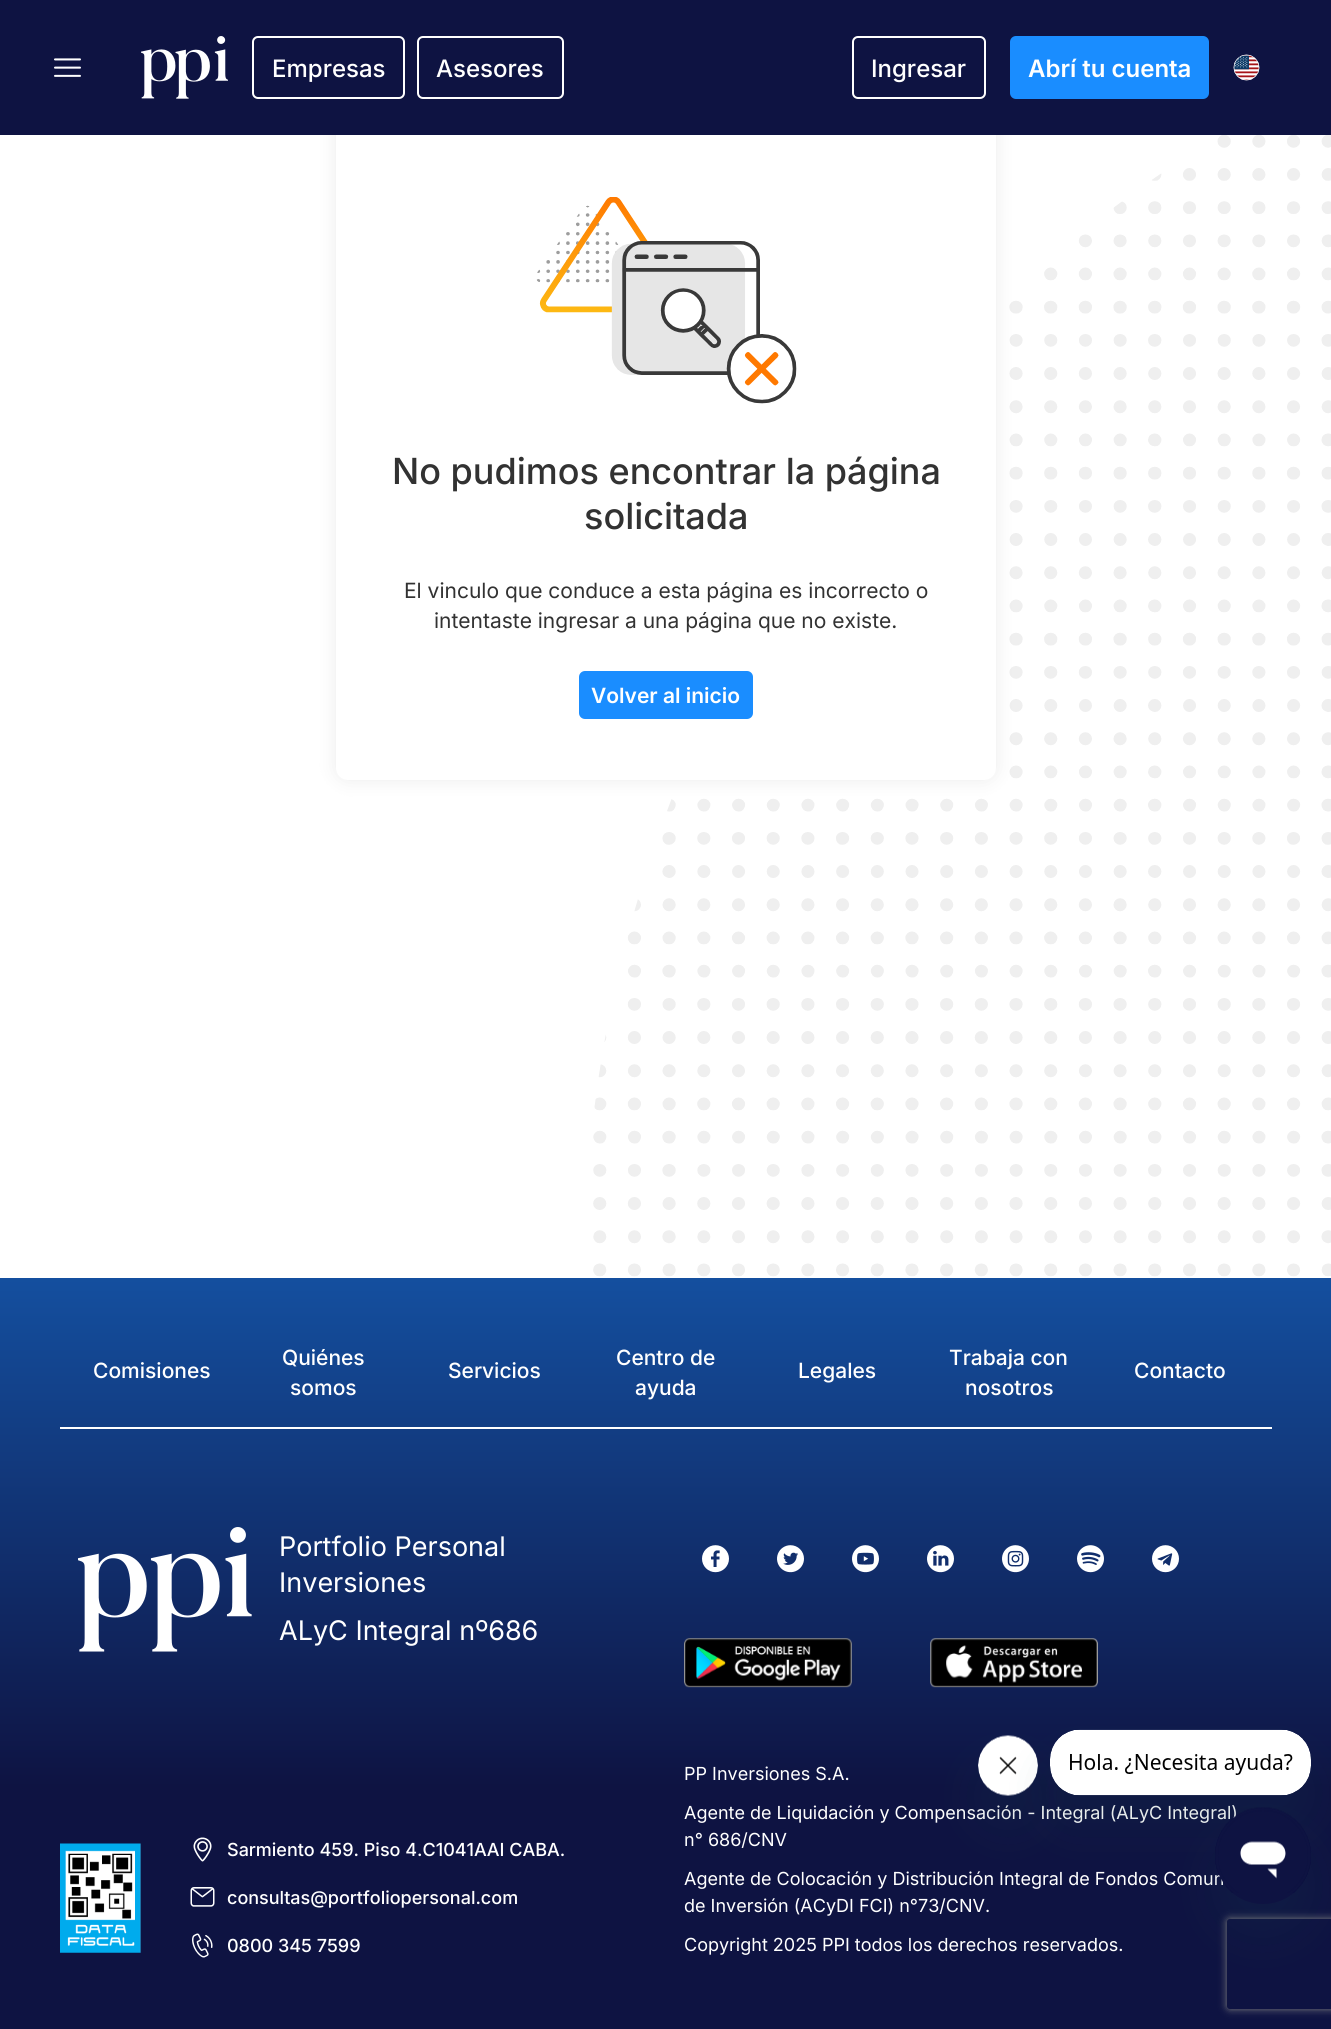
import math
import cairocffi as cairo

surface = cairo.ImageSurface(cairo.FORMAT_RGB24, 1331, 2029)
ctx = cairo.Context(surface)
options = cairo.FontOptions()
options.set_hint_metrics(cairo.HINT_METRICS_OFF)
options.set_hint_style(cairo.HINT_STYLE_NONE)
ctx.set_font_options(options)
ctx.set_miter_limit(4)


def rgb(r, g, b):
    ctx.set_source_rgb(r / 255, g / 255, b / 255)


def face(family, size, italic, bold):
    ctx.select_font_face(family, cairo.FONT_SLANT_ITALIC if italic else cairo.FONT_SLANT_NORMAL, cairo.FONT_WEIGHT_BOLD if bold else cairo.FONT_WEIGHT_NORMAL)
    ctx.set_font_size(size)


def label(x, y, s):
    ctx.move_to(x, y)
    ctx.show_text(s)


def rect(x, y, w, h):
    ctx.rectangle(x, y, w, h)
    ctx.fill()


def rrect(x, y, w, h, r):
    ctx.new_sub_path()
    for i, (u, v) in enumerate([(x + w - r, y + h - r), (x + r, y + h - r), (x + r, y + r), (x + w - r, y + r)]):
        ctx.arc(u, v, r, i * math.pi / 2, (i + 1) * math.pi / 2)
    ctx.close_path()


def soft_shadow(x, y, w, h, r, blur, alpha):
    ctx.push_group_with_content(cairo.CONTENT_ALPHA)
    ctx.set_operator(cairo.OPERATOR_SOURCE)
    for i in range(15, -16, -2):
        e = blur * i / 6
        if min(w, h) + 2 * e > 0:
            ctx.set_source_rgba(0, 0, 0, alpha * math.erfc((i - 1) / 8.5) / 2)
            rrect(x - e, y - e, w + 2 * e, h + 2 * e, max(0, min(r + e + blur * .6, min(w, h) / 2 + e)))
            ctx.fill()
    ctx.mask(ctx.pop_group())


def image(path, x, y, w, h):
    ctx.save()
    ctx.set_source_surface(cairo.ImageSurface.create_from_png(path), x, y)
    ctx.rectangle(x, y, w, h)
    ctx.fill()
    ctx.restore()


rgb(255, 255, 255)
ctx.paint()
image('image3.png', 593, 135, 738, 1142)
rgb(157, 157, 157)
soft_shadow(336, 87, 660, 693, 12, 9, 0.2)
rgb(255, 255, 255)
rrect(336, 87, 660, 693, 12)
ctx.fill()
rgb(14, 19, 66)
rect(0, 0, 1331, 135)
image('image0.png', 54, 58, 27, 19)
image('image1.png', 141, 36, 87, 63)
rrect(253, 37, 151, 61, 5)
rgb(255, 255, 255)
ctx.stroke()
face('Inter Medium', 24, 0, 0)
label(272, 77, 'Empresas')
rrect(418, 37, 145, 61, 5)
ctx.stroke()
label(436, 77, 'Asesores')
rrect(853, 37, 132, 61, 5)
ctx.stroke()
label(871, 77, 'Ingresar')
rgb(26, 141, 255)
rrect(1010, 36, 199, 63, 6)
ctx.fill()
face('Inter SemiBold', 24, 0, 0)
rgb(255, 255, 255)
label(1028, 77, 'Abrí tu cuenta')
image('image2.png', 1233, 54, 27, 27)
image('image4.png', 536, 197, 261, 207)
face('Inter Medium', 36, 0, 0)
rgb(50, 50, 50)
label(392, 484, 'No pudimos encontrar la página')
label(584, 529, 'solicitada')
face('Inter', 21, 0, 0)
label(404, 598, 'El vinculo que conduce a esta página es incorrecto o')
label(434, 628, 'intentaste ingresar a una página que no existe.')
rgb(26, 141, 255)
rrect(579, 671, 174, 48, 6)
ctx.fill()
face('Inter SemiBold', 21, 0, 0)
rgb(255, 255, 255)
label(591, 703, 'Volver al inicio')
gradient = cairo.LinearGradient(666, 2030, 666, 751)
gradient.add_color_stop_rgba(0.19, 0.055, 0.075, 0.259, 1)
gradient.add_color_stop_rgba(1, 0.102, 0.553, 1, 1)
ctx.set_source(gradient)
rect(0, 1278, 1331, 751)
rgb(255, 255, 255)
rect(60, 1427, 1212, 2)
face('Inter Medium', 21, 0, 0)
label(93, 1378, 'Comisiones')
label(282, 1365, 'Quiénes')
label(290, 1395, 'somos')
label(448, 1378, 'Servicios')
label(616, 1365, 'Centro de')
label(635, 1395, 'ayuda')
label(798, 1378, 'Legales')
label(949, 1365, 'Trabaja con')
label(965, 1395, 'nosotros')
label(1134, 1378, 'Contacto')
image('image5.png', 78, 1527, 174, 125)
face('Inter', 27, 0, 0)
label(279, 1556, 'Portfolio Personal')
label(279, 1592, 'Inversiones')
label(279, 1640, 'ALyC Integral nº686')
image('image6.png', 60, 1843, 81, 110)
image('image7.png', 193, 1837, 19, 25)
face('Inter Medium', 18, 0, 0)
label(227, 1856, 'Sarmiento 459. Piso 4.C1041AAI CABA.')
image('image8.png', 190, 1887, 25, 20)
label(227, 1904, 'consultas@portfoliopersonal.com')
image('image9.png', 192, 1933, 21, 25)
label(227, 1952, '0800 345 7599')
image('image10.png', 702, 1545, 27, 28)
image('image11.png', 777, 1545, 27, 28)
image('image12.png', 852, 1545, 27, 28)
image('image13.png', 927, 1545, 27, 28)
image('image14.png', 1002, 1545, 27, 28)
image('image15.png', 1077, 1545, 27, 28)
image('image16.png', 1152, 1545, 27, 28)
image('image17.png', 684, 1638, 168, 50)
image('image18.png', 930, 1638, 168, 50)
face('Inter', 18, 0, 0)
label(684, 1780, 'PP Inversiones S.A.')
label(684, 1819, 'Agente de Liquidación y Compensación - Integral (ALyC Integral)')
label(684, 1846, 'n° 686/CNV')
label(684, 1885, 'Agente de Colocación y Distribución Integral de Fondos Comun')
label(684, 1912, 'de Inversión (ACyDI FCI) n°73/CNV.')
label(684, 1951, 'Copyright 2025 PPI todos los derechos reservados.')
rgb(23, 73, 77)
soft_shadow(978, 1766, 60, 60, 30, 22.5, 0.15)
image('image20.png', 978, 1735, 60, 61)
soft_shadow(1050, 1760, 261, 66, 30, 22.5, 0.15)
image('image19.png', 1050, 1729, 261, 67)
ctx.save()
ctx.set_fill_rule(cairo.FILL_RULE_EVEN_ODD)
ctx.new_path()
ctx.move_to(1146, 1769)
ctx.line_to(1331, 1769)
ctx.line_to(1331, 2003)
ctx.line_to(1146, 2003)
ctx.close_path()
ctx.move_to(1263, 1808)
ctx.curve_to(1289.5, 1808, 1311, 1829.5, 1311, 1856)
ctx.curve_to(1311, 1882.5, 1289.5, 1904, 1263, 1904)
ctx.curve_to(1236.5, 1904, 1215, 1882.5, 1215, 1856)
ctx.curve_to(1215, 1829.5, 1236.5, 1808, 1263, 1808)
ctx.close_path()
ctx.clip()
soft_shadow(1215, 1838, 96, 96, 48, 22.5, 0.15)
ctx.restore()
image('image21.png', 1215, 1807, 96, 86)
ctx.save()
ctx.set_fill_rule(cairo.FILL_RULE_EVEN_ODD)
ctx.new_path()
ctx.move_to(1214, 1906)
ctx.line_to(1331, 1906)
ctx.line_to(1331, 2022)
ctx.line_to(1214, 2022)
ctx.close_path()
ctx.move_to(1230, 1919)
ctx.line_to(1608, 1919)
ctx.curve_to(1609.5, 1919, 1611, 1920.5, 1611, 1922)
ctx.line_to(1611, 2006)
ctx.curve_to(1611, 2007.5, 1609.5, 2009, 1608, 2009)
ctx.line_to(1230, 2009)
ctx.curve_to(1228.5, 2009, 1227, 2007.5, 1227, 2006)
ctx.line_to(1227, 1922)
ctx.curve_to(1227, 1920.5, 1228.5, 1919, 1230, 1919)
ctx.close_path()
ctx.clip()
rgb(128, 128, 128)
soft_shadow(1227, 1919, 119, 90, 3, 4, 1)
ctx.restore()
surface.write_to_png('render.png')
